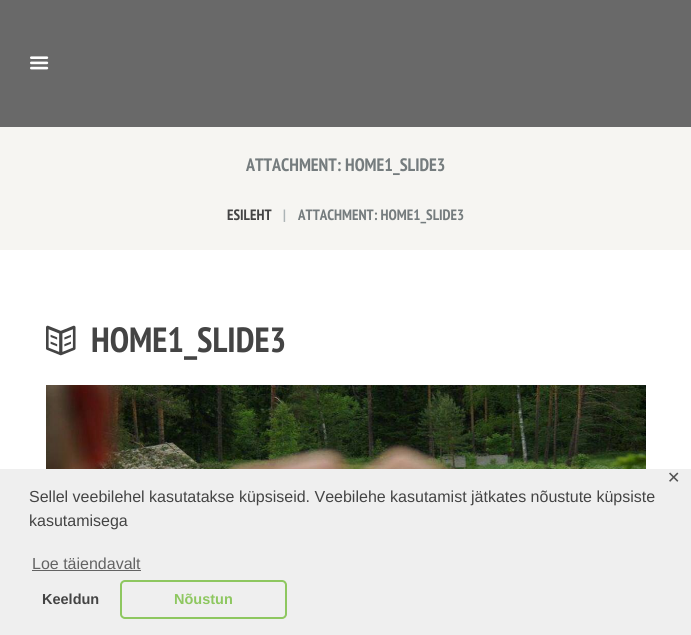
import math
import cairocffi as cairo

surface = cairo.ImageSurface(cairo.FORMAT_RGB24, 691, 635)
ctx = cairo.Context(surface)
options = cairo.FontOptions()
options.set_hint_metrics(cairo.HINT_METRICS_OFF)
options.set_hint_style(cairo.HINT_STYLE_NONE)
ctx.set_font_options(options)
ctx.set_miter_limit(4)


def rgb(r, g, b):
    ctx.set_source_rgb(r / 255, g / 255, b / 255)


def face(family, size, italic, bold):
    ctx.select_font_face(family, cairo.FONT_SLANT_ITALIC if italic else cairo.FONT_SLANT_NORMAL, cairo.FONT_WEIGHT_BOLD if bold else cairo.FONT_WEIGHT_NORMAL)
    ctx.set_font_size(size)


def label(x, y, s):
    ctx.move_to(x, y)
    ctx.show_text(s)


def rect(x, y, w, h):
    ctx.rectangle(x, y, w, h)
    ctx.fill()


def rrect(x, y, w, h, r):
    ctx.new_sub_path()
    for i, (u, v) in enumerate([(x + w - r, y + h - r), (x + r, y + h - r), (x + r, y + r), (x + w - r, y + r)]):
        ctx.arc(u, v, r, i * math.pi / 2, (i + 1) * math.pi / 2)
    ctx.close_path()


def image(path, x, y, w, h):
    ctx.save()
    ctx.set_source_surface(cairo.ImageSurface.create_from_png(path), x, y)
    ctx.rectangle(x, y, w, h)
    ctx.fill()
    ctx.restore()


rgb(255, 255, 255)
ctx.paint()
rgb(105, 105, 105)
rect(0, 0, 691, 127)
image('image0.png', 30, 56, 19, 14)
rgb(246, 245, 242)
rect(0, 127, 691, 123)
face('PT Sans Narrow', 18, 0, 1)
rgb(117, 124, 126)
label(246, 171, 'ATTACHMENT: HOME1_SLIDE3')
face('PT Sans Narrow', 15, 0, 1)
rgb(68, 68, 68)
label(227, 220, 'ESILEHT')
rgb(172, 180, 182)
label(283, 220, '|')
rgb(117, 124, 126)
label(298, 220, 'ATTACHMENT: HOME1_SLIDE3')
image('image1.png', 46, 325, 30, 31)
face('PT Sans Narrow', 35, 0, 1)
rgb(68, 68, 68)
label(91, 352, 'HOME1_SLIDE3')
image('image2.png', 46, 385, 600, 84)
rgb(239, 239, 239)
rect(0, 469, 691, 166)
face('DejaVu Sans', 16, 0, 0)
rgb(82, 82, 82)
label(667, 483, '✕')
face('Liberation Sans', 16, 0, 0)
rgb(68, 68, 68)
label(29, 502, 'Sellel veebilehel kasutatakse küpsiseid. Veebilehe kasutamist jätkates nõustute küpsiste')
label(29, 526, 'kasutamisega')
rgb(99, 99, 99)
label(32, 569, 'Loe täiendavalt')
rect(32, 570, 109, 1)
face('Liberation Sans', 14.5, 0, 1)
rgb(68, 68, 68)
label(42, 604, 'Keeldun')
rrect(121, 581, 165, 37, 4)
rgb(142, 199, 96)
ctx.stroke()
label(174, 604, 'Nõustun')
surface.write_to_png('render.png')
